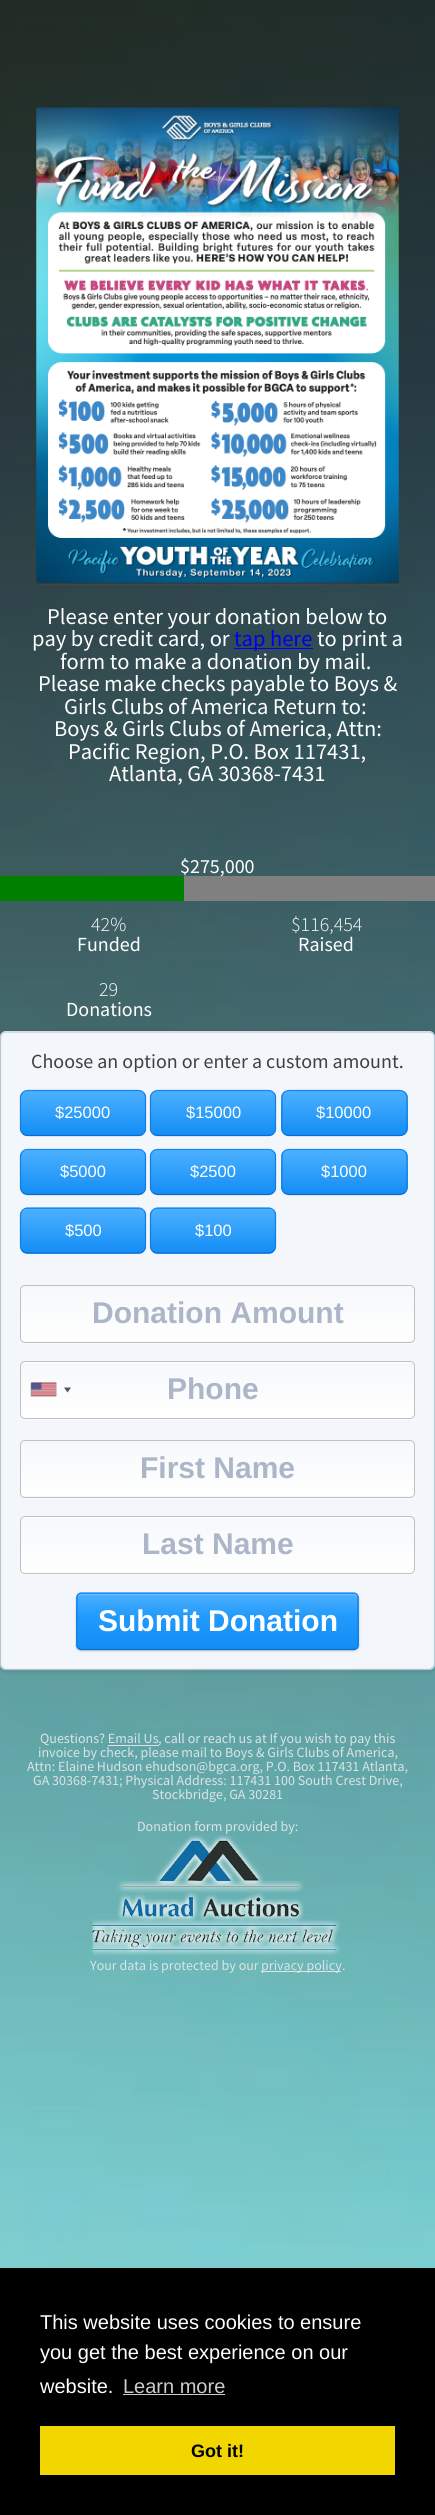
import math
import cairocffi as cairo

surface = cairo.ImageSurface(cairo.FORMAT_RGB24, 435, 2515)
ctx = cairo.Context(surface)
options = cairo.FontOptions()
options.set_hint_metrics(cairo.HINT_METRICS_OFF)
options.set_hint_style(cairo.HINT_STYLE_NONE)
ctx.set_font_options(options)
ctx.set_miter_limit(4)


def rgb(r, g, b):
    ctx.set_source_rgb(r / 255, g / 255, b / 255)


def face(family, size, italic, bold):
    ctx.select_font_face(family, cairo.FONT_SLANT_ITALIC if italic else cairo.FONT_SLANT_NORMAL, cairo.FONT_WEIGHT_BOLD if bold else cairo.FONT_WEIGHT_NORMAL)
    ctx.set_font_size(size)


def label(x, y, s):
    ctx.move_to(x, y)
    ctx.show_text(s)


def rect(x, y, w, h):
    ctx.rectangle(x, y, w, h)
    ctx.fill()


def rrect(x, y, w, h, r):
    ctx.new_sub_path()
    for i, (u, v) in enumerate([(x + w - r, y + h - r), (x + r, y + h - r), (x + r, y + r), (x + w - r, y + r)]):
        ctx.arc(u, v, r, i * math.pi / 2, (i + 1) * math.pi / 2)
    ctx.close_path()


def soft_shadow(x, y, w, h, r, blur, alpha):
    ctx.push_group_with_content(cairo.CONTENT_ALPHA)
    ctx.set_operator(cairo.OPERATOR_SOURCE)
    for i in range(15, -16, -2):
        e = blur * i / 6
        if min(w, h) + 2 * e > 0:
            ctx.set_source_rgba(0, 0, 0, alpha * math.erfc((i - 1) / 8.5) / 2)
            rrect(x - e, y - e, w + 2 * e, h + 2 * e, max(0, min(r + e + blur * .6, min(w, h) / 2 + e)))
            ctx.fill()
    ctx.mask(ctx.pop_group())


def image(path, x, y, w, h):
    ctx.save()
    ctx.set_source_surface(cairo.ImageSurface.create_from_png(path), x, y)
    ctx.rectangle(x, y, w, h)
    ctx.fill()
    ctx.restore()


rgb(255, 255, 255)
ctx.paint()
image('image0.png', 0, 0, 435, 2268)
image('image1.png', 36, 107, 363, 478)
face('Source Sans Pro', 22.5, 0, 0)
rgb(255, 255, 255)
label(47, 624, 'Please enter your donation below to')
label(32, 646, 'pay by credit card, or')
rgb(0, 0, 238)
rect(234, 648, 79, 1)
label(234, 646, 'tap here')
rgb(255, 255, 255)
label(317, 646, 'to print a')
label(60, 669, 'form to make a donation by mail.')
label(38, 691, 'Please make checks payable to Boys &')
label(64, 714, 'Girls Clubs of America Return to:')
label(54, 736, 'Boys & Girls Clubs of America, Attn:')
label(68, 759, 'Pacific Region, P.O. Box 117431,')
label(109, 781, 'Atlanta, GA 30368-7431')
rgb(128, 128, 128)
rect(184, 876, 251, 25)
rgb(0, 128, 0)
rect(0, 876, 184, 25)
face('Source Sans Pro', 20, 0, 0)
rgb(255, 255, 255)
label(180, 873, '$275,000')
face('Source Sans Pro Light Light', 20, 0, 0)
label(91, 931, '42%')
face('Source Sans Pro', 20, 0, 0)
label(77, 951, 'Funded')
face('Source Sans Pro Light Light', 20, 0, 0)
label(291, 931, '$116,454')
face('Source Sans Pro', 20, 0, 0)
label(298, 951, 'Raised')
face('Source Sans Pro Light Light', 20, 0, 0)
label(99, 996, '29')
face('Source Sans Pro', 20, 0, 0)
label(66, 1016, 'Donations')
rgb(0, 0, 0)
soft_shadow(0, 1033, 435, 638, 6, 3, 0.15)
rgb(243, 246, 250)
rrect(0, 1031, 435, 639, 6)
ctx.fill()
ctx.new_path()
ctx.move_to(2.5, 1033.5)
ctx.curve_to(3.5, 1032.5, 5, 1032, 6, 1032)
ctx.line_to(429, 1032)
ctx.curve_to(430, 1032, 431.5, 1032.5, 432.5, 1033.5)
rgb(194, 202, 219)
ctx.set_line_width(1.2)
ctx.stroke()
ctx.new_path()
ctx.move_to(432.5, 1033.5)
ctx.curve_to(434, 1034.5, 434.5, 1036, 434.5, 1037.5)
ctx.line_to(434.5, 1664)
ctx.curve_to(434.5, 1665, 434, 1666.5, 432.5, 1667.5)
rgb(187, 197, 214)
ctx.stroke()
ctx.new_path()
ctx.move_to(432.5, 1667.5)
ctx.curve_to(431.5, 1669, 430, 1669.5, 429, 1669.5)
ctx.line_to(6.5, 1669.5)
ctx.curve_to(5, 1669.5, 3.5, 1669, 2.5, 1667.5)
rgb(183, 192, 205)
ctx.stroke()
ctx.new_path()
ctx.move_to(2.5, 1667.5)
ctx.curve_to(1, 1666.5, 0.5, 1665, 0.5, 1664)
ctx.line_to(0.5, 1037.5)
ctx.curve_to(0.5, 1036, 1, 1034.5, 2.5, 1033.5)
rgb(187, 197, 214)
ctx.stroke()
rgb(64, 64, 64)
label(31, 1068, 'Choose an option or enter a custom amount.')
ctx.save()
rrect(20, 1090, 126, 46, 8)
ctx.clip()
gradient = cairo.LinearGradient(83, 1091, 83, 1135)
gradient.add_color_stop_rgba(0, 0.298, 0.694, 0.996, 1)
gradient.add_color_stop_rgba(1, 0.075, 0.553, 0.965, 1)
ctx.set_source(gradient)
rect(20, 1091, 126, 44)
ctx.restore()
ctx.new_path()
ctx.move_to(22.5, 1092.5)
ctx.curve_to(24, 1091.5, 25.5, 1090.5, 27.5, 1090.5)
ctx.line_to(139, 1090.5)
ctx.curve_to(140.5, 1090.5, 142.5, 1091.5, 143.5, 1092.5)
rgb(20, 134, 249)
ctx.stroke()
ctx.new_path()
ctx.move_to(143.5, 1092.5)
ctx.curve_to(145, 1094, 145.5, 1095.5, 145.5, 1097.5)
ctx.line_to(145.5, 1129)
ctx.curve_to(145.5, 1130.5, 145, 1132.5, 143.5, 1133.5)
rgb(15, 125, 233)
ctx.stroke()
ctx.new_path()
ctx.move_to(143.5, 1133.5)
ctx.curve_to(142.5, 1135, 140.5, 1135.5, 139, 1135.5)
ctx.line_to(27.5, 1135.5)
ctx.curve_to(25.5, 1135.5, 24, 1135, 22.5, 1133.5)
rgb(13, 106, 207)
ctx.stroke()
ctx.new_path()
ctx.move_to(22.5, 1133.5)
ctx.curve_to(21.5, 1132.5, 20.5, 1130.5, 20.5, 1129)
ctx.line_to(20.5, 1097.5)
ctx.curve_to(20.5, 1095.5, 21.5, 1094, 22.5, 1092.5)
rgb(15, 125, 233)
ctx.stroke()
face('Liberation Sans', 16.5, 0, 0)
rgb(255, 255, 255)
label(55, 1118, '$25000')
ctx.save()
rrect(150, 1090, 126, 46, 8)
ctx.clip()
gradient = cairo.LinearGradient(213, 1091, 213, 1135)
gradient.add_color_stop_rgba(0, 0.298, 0.694, 0.996, 1)
gradient.add_color_stop_rgba(1, 0.075, 0.553, 0.965, 1)
ctx.set_source(gradient)
rect(150, 1091, 126, 44)
ctx.restore()
ctx.new_path()
ctx.move_to(152.5, 1092.5)
ctx.curve_to(154, 1091.5, 155.5, 1090.5, 157.5, 1090.5)
ctx.line_to(269, 1090.5)
ctx.curve_to(270.5, 1090.5, 272.5, 1091.5, 273.5, 1092.5)
rgb(20, 134, 249)
ctx.stroke()
ctx.new_path()
ctx.move_to(273.5, 1092.5)
ctx.curve_to(275, 1094, 275.5, 1095.5, 275.5, 1097.5)
ctx.line_to(275.5, 1129)
ctx.curve_to(275.5, 1130.5, 275, 1132.5, 273.5, 1133.5)
rgb(15, 125, 233)
ctx.stroke()
ctx.new_path()
ctx.move_to(273.5, 1133.5)
ctx.curve_to(272.5, 1135, 270.5, 1135.5, 269, 1135.5)
ctx.line_to(157.5, 1135.5)
ctx.curve_to(155.5, 1135.5, 154, 1135, 152.5, 1133.5)
rgb(13, 106, 207)
ctx.stroke()
ctx.new_path()
ctx.move_to(152.5, 1133.5)
ctx.curve_to(151.5, 1132.5, 150.5, 1130.5, 150.5, 1129)
ctx.line_to(150.5, 1097.5)
ctx.curve_to(150.5, 1095.5, 151.5, 1094, 152.5, 1092.5)
rgb(15, 125, 233)
ctx.stroke()
rgb(255, 255, 255)
label(186, 1118, '$15000')
ctx.save()
rrect(281, 1090, 127, 46, 8)
ctx.clip()
gradient = cairo.LinearGradient(344, 1091, 344, 1135)
gradient.add_color_stop_rgba(0, 0.298, 0.694, 0.996, 1)
gradient.add_color_stop_rgba(1, 0.075, 0.553, 0.965, 1)
ctx.set_source(gradient)
rect(281, 1091, 127, 44)
ctx.restore()
ctx.new_path()
ctx.move_to(284, 1092.5)
ctx.curve_to(285, 1091.5, 287, 1090.5, 289, 1090.5)
ctx.line_to(400, 1090.5)
ctx.curve_to(402, 1090.5, 403.5, 1091.5, 405, 1092.5)
rgb(20, 134, 249)
ctx.stroke()
ctx.new_path()
ctx.move_to(405, 1092.5)
ctx.curve_to(406, 1094, 407, 1095.5, 407, 1097.5)
ctx.line_to(407, 1129)
ctx.curve_to(407, 1130.5, 406, 1132.5, 405, 1133.5)
rgb(15, 125, 233)
ctx.stroke()
ctx.new_path()
ctx.move_to(405, 1133.5)
ctx.curve_to(403.5, 1135, 402, 1135.5, 400, 1135.5)
ctx.line_to(289, 1135.5)
ctx.curve_to(287, 1135.5, 285, 1135, 284, 1133.5)
rgb(13, 106, 207)
ctx.stroke()
ctx.new_path()
ctx.move_to(284, 1133.5)
ctx.curve_to(282.5, 1132.5, 282, 1130.5, 282, 1129)
ctx.line_to(282, 1097.5)
ctx.curve_to(282, 1095.5, 282.5, 1094, 284, 1092.5)
rgb(15, 125, 233)
ctx.stroke()
rgb(255, 255, 255)
label(316, 1118, '$10000')
ctx.save()
rrect(20, 1149, 126, 46, 8)
ctx.clip()
gradient = cairo.LinearGradient(83, 1150, 83, 1194)
gradient.add_color_stop_rgba(0, 0.298, 0.694, 0.996, 1)
gradient.add_color_stop_rgba(1, 0.075, 0.553, 0.965, 1)
ctx.set_source(gradient)
rect(20, 1150, 126, 44)
ctx.restore()
ctx.new_path()
ctx.move_to(22.5, 1151.5)
ctx.curve_to(24, 1150, 25.5, 1149.5, 27.5, 1149.5)
ctx.line_to(139, 1149.5)
ctx.curve_to(140.5, 1149.5, 142.5, 1150, 143.5, 1151.5)
rgb(20, 134, 249)
ctx.stroke()
ctx.new_path()
ctx.move_to(143.5, 1151.5)
ctx.curve_to(145, 1152.5, 145.5, 1154.5, 145.5, 1156)
ctx.line_to(145.5, 1187.5)
ctx.curve_to(145.5, 1189.5, 145, 1191, 143.5, 1192.5)
rgb(15, 125, 233)
ctx.stroke()
ctx.new_path()
ctx.move_to(143.5, 1192.5)
ctx.curve_to(142.5, 1193.5, 140.5, 1194.5, 139, 1194.5)
ctx.line_to(27.5, 1194.5)
ctx.curve_to(25.5, 1194.5, 24, 1193.5, 22.5, 1192.5)
rgb(13, 106, 207)
ctx.stroke()
ctx.new_path()
ctx.move_to(22.5, 1192.5)
ctx.curve_to(21.5, 1191, 20.5, 1189.5, 20.5, 1187.5)
ctx.line_to(20.5, 1156)
ctx.curve_to(20.5, 1154.5, 21.5, 1152.5, 22.5, 1151.5)
rgb(15, 125, 233)
ctx.stroke()
rgb(255, 255, 255)
label(60, 1177, '$5000')
ctx.save()
rrect(150, 1149, 126, 46, 8)
ctx.clip()
gradient = cairo.LinearGradient(213, 1150, 213, 1194)
gradient.add_color_stop_rgba(0, 0.298, 0.694, 0.996, 1)
gradient.add_color_stop_rgba(1, 0.075, 0.553, 0.965, 1)
ctx.set_source(gradient)
rect(150, 1150, 126, 44)
ctx.restore()
ctx.new_path()
ctx.move_to(152.5, 1151.5)
ctx.curve_to(154, 1150, 155.5, 1149.5, 157.5, 1149.5)
ctx.line_to(269, 1149.5)
ctx.curve_to(270.5, 1149.5, 272.5, 1150, 273.5, 1151.5)
rgb(20, 134, 249)
ctx.stroke()
ctx.new_path()
ctx.move_to(273.5, 1151.5)
ctx.curve_to(275, 1152.5, 275.5, 1154.5, 275.5, 1156)
ctx.line_to(275.5, 1187.5)
ctx.curve_to(275.5, 1189.5, 275, 1191, 273.5, 1192.5)
rgb(15, 125, 233)
ctx.stroke()
ctx.new_path()
ctx.move_to(273.5, 1192.5)
ctx.curve_to(272.5, 1193.5, 270.5, 1194.5, 269, 1194.5)
ctx.line_to(157.5, 1194.5)
ctx.curve_to(155.5, 1194.5, 154, 1193.5, 152.5, 1192.5)
rgb(13, 106, 207)
ctx.stroke()
ctx.new_path()
ctx.move_to(152.5, 1192.5)
ctx.curve_to(151.5, 1191, 150.5, 1189.5, 150.5, 1187.5)
ctx.line_to(150.5, 1156)
ctx.curve_to(150.5, 1154.5, 151.5, 1152.5, 152.5, 1151.5)
rgb(15, 125, 233)
ctx.stroke()
rgb(255, 255, 255)
label(190, 1177, '$2500')
ctx.save()
rrect(281, 1149, 127, 46, 8)
ctx.clip()
gradient = cairo.LinearGradient(344, 1150, 344, 1194)
gradient.add_color_stop_rgba(0, 0.298, 0.694, 0.996, 1)
gradient.add_color_stop_rgba(1, 0.075, 0.553, 0.965, 1)
ctx.set_source(gradient)
rect(281, 1150, 127, 44)
ctx.restore()
ctx.new_path()
ctx.move_to(284, 1151.5)
ctx.curve_to(285, 1150, 287, 1149.5, 289, 1149.5)
ctx.line_to(400, 1149.5)
ctx.curve_to(402, 1149.5, 403.5, 1150, 405, 1151.5)
rgb(20, 134, 249)
ctx.stroke()
ctx.new_path()
ctx.move_to(405, 1151.5)
ctx.curve_to(406, 1152.5, 407, 1154.5, 407, 1156)
ctx.line_to(407, 1187.5)
ctx.curve_to(407, 1189.5, 406, 1191, 405, 1192.5)
rgb(15, 125, 233)
ctx.stroke()
ctx.new_path()
ctx.move_to(405, 1192.5)
ctx.curve_to(403.5, 1193.5, 402, 1194.5, 400, 1194.5)
ctx.line_to(289, 1194.5)
ctx.curve_to(287, 1194.5, 285, 1193.5, 284, 1192.5)
rgb(13, 106, 207)
ctx.stroke()
ctx.new_path()
ctx.move_to(284, 1192.5)
ctx.curve_to(282.5, 1191, 282, 1189.5, 282, 1187.5)
ctx.line_to(282, 1156)
ctx.curve_to(282, 1154.5, 282.5, 1152.5, 284, 1151.5)
rgb(15, 125, 233)
ctx.stroke()
rgb(255, 255, 255)
label(321, 1177, '$1000')
ctx.save()
rrect(20, 1208, 126, 46, 8)
ctx.clip()
gradient = cairo.LinearGradient(83, 1165, 83, 1209)
gradient.add_color_stop_rgba(0, 0.298, 0.694, 0.996, 1)
gradient.add_color_stop_rgba(1, 0.075, 0.553, 0.965, 1)
ctx.set_source(gradient)
rect(20, 1208, 126, 1)
gradient = cairo.LinearGradient(83, 1209, 83, 1253)
gradient.add_color_stop_rgba(0, 0.298, 0.694, 0.996, 1)
gradient.add_color_stop_rgba(1, 0.075, 0.553, 0.965, 1)
ctx.set_source(gradient)
rect(20, 1209, 126, 44)
gradient = cairo.LinearGradient(83, 1253, 83, 1296)
gradient.add_color_stop_rgba(0, 0.298, 0.694, 0.996, 1)
gradient.add_color_stop_rgba(1, 0.075, 0.553, 0.965, 1)
ctx.set_source(gradient)
rect(20, 1253, 126, 1)
ctx.restore()
ctx.new_path()
ctx.move_to(22.5, 1210)
ctx.curve_to(24, 1209, 25.5, 1208, 27.5, 1208)
ctx.line_to(139, 1208)
ctx.curve_to(140.5, 1208, 142.5, 1209, 143.5, 1210)
rgb(20, 134, 249)
ctx.stroke()
ctx.new_path()
ctx.move_to(143.5, 1210)
ctx.curve_to(145, 1211.5, 145.5, 1213, 145.5, 1215)
ctx.line_to(145.5, 1246)
ctx.curve_to(145.5, 1248, 145, 1250, 143.5, 1251)
rgb(15, 125, 233)
ctx.stroke()
ctx.new_path()
ctx.move_to(143.5, 1251)
ctx.curve_to(142.5, 1252.5, 140.5, 1253, 139, 1253)
ctx.line_to(27.5, 1253)
ctx.curve_to(25.5, 1253, 24, 1252.5, 22.5, 1251)
rgb(13, 106, 207)
ctx.stroke()
ctx.new_path()
ctx.move_to(22.5, 1251)
ctx.curve_to(21.5, 1250, 20.5, 1248, 20.5, 1246)
ctx.line_to(20.5, 1215)
ctx.curve_to(20.5, 1213, 21.5, 1211.5, 22.5, 1210)
rgb(15, 125, 233)
ctx.stroke()
rgb(255, 255, 255)
label(65, 1236, '$500')
ctx.save()
rrect(150, 1208, 126, 46, 8)
ctx.clip()
gradient = cairo.LinearGradient(213, 1165, 213, 1209)
gradient.add_color_stop_rgba(0, 0.298, 0.694, 0.996, 1)
gradient.add_color_stop_rgba(1, 0.075, 0.553, 0.965, 1)
ctx.set_source(gradient)
rect(150, 1208, 126, 1)
gradient = cairo.LinearGradient(213, 1209, 213, 1253)
gradient.add_color_stop_rgba(0, 0.298, 0.694, 0.996, 1)
gradient.add_color_stop_rgba(1, 0.075, 0.553, 0.965, 1)
ctx.set_source(gradient)
rect(150, 1209, 126, 44)
gradient = cairo.LinearGradient(213, 1253, 213, 1296)
gradient.add_color_stop_rgba(0, 0.298, 0.694, 0.996, 1)
gradient.add_color_stop_rgba(1, 0.075, 0.553, 0.965, 1)
ctx.set_source(gradient)
rect(150, 1253, 126, 1)
ctx.restore()
ctx.new_path()
ctx.move_to(152.5, 1210)
ctx.curve_to(154, 1209, 155.5, 1208, 157.5, 1208)
ctx.line_to(269, 1208)
ctx.curve_to(270.5, 1208, 272.5, 1209, 273.5, 1210)
rgb(20, 134, 249)
ctx.stroke()
ctx.new_path()
ctx.move_to(273.5, 1210)
ctx.curve_to(275, 1211.5, 275.5, 1213, 275.5, 1215)
ctx.line_to(275.5, 1246)
ctx.curve_to(275.5, 1248, 275, 1250, 273.5, 1251)
rgb(15, 125, 233)
ctx.stroke()
ctx.new_path()
ctx.move_to(273.5, 1251)
ctx.curve_to(272.5, 1252.5, 270.5, 1253, 269, 1253)
ctx.line_to(157.5, 1253)
ctx.curve_to(155.5, 1253, 154, 1252.5, 152.5, 1251)
rgb(13, 106, 207)
ctx.stroke()
ctx.new_path()
ctx.move_to(152.5, 1251)
ctx.curve_to(151.5, 1250, 150.5, 1248, 150.5, 1246)
ctx.line_to(150.5, 1215)
ctx.curve_to(150.5, 1213, 151.5, 1211.5, 152.5, 1210)
rgb(15, 125, 233)
ctx.stroke()
rgb(255, 255, 255)
label(195, 1236, '$100')
rgb(249, 251, 253)
ctx.new_path()
ctx.move_to(20, 1338)
ctx.curve_to(20, 1341, 21, 1344, 25, 1344)
ctx.line_to(410, 1344)
ctx.curve_to(414, 1344, 415, 1341, 415, 1338)
ctx.curve_to(415, 1340, 413, 1342, 410, 1342)
ctx.line_to(25, 1342)
ctx.curve_to(22, 1342, 20, 1340, 20, 1338)
ctx.close_path()
ctx.fill()
ctx.save()
rrect(20, 1285, 395, 58, 5)
ctx.clip()
gradient = cairo.LinearGradient(218, 1286, 218, 1341)
gradient.add_color_stop_rgba(0, 0.965, 0.973, 0.98, 1)
gradient.add_color_stop_rgba(1, 1, 1, 1, 1)
ctx.set_source(gradient)
rect(20, 1286, 395, 55)
gradient = cairo.LinearGradient(218, 1341, 218, 1396)
gradient.add_color_stop_rgba(0, 0.965, 0.973, 0.98, 1)
gradient.add_color_stop_rgba(1, 1, 1, 1, 1)
ctx.set_source(gradient)
rect(20, 1341, 395, 2)
ctx.restore()
rrect(20.5, 1285.5, 394, 57, 4.5)
rgb(192, 192, 192)
ctx.set_line_width(1)
ctx.stroke()
face('Liberation Sans', 30, 0, 1)
rgb(172, 182, 200)
label(92, 1323, 'Donation Amount')
rgb(249, 251, 253)
ctx.new_path()
ctx.move_to(20, 1414)
ctx.line_to(20, 1415)
ctx.curve_to(20, 1418, 22, 1420, 25, 1420)
ctx.line_to(410, 1420)
ctx.curve_to(413, 1420, 415, 1418, 415, 1415)
ctx.line_to(415, 1414)
ctx.curve_to(415, 1417, 413, 1419, 410, 1419)
ctx.line_to(25, 1419)
ctx.curve_to(22, 1419, 20, 1417, 20, 1414)
ctx.close_path()
ctx.fill()
ctx.save()
rrect(20, 1361, 395, 58, 5)
ctx.clip()
gradient = cairo.LinearGradient(218, 1363, 218, 1418)
gradient.add_color_stop_rgba(0, 0.965, 0.973, 0.98, 1)
gradient.add_color_stop_rgba(1, 1, 1, 1, 1)
ctx.set_source(gradient)
rect(20, 1363, 395, 55)
gradient = cairo.LinearGradient(218, 1308, 218, 1363)
gradient.add_color_stop_rgba(0, 0.965, 0.973, 0.98, 1)
gradient.add_color_stop_rgba(1, 1, 1, 1, 1)
ctx.set_source(gradient)
rect(20, 1361, 395, 2)
ctx.restore()
rrect(20.5, 1361.5, 394, 57, 4.5)
rgb(192, 192, 192)
ctx.stroke()
rgb(136, 136, 136)
soft_shadow(31, 1383, 25, 13, 0, 0.5, 1)
image('image2.png', 31, 1382, 26, 15)
rgb(85, 85, 85)
ctx.new_path()
ctx.move_to(64, 1387.5)
ctx.line_to(71, 1387.5)
ctx.line_to(67.5, 1392.5)
ctx.close_path()
ctx.fill()
rgb(172, 182, 200)
label(167, 1399, 'Phone')
rgb(249, 251, 253)
ctx.new_path()
ctx.move_to(20, 1492)
ctx.curve_to(20, 1496, 21, 1499, 25, 1499)
ctx.line_to(410, 1499)
ctx.curve_to(414, 1499, 415, 1496, 415, 1492)
ctx.curve_to(415, 1495, 413, 1498, 410, 1498)
ctx.line_to(25, 1498)
ctx.curve_to(22, 1498, 20, 1495, 20, 1492)
ctx.close_path()
ctx.fill()
ctx.save()
rrect(20, 1440, 395, 58, 5)
ctx.clip()
gradient = cairo.LinearGradient(218, 1441, 218, 1496)
gradient.add_color_stop_rgba(0, 0.965, 0.973, 0.98, 1)
gradient.add_color_stop_rgba(1, 1, 1, 1, 1)
ctx.set_source(gradient)
rect(20, 1441, 395, 55)
gradient = cairo.LinearGradient(218, 1496, 218, 1551)
gradient.add_color_stop_rgba(0, 0.965, 0.973, 0.98, 1)
gradient.add_color_stop_rgba(1, 1, 1, 1, 1)
ctx.set_source(gradient)
rect(20, 1496, 395, 2)
ctx.restore()
rrect(20.5, 1440.5, 394, 57, 4.5)
rgb(192, 192, 192)
ctx.stroke()
rgb(172, 182, 200)
label(140, 1478, 'First Name')
rgb(249, 251, 253)
ctx.new_path()
ctx.move_to(20, 1569)
ctx.line_to(20, 1570)
ctx.curve_to(20, 1573, 22, 1575, 25, 1575)
ctx.line_to(410, 1575)
ctx.curve_to(413, 1575, 415, 1573, 415, 1570)
ctx.line_to(415, 1569)
ctx.curve_to(415, 1572, 413, 1574, 410, 1574)
ctx.line_to(25, 1574)
ctx.curve_to(22, 1574, 20, 1572, 20, 1569)
ctx.close_path()
ctx.fill()
ctx.save()
rrect(20, 1516, 395, 58, 5)
ctx.clip()
gradient = cairo.LinearGradient(218, 1463, 218, 1518)
gradient.add_color_stop_rgba(0, 0.965, 0.973, 0.98, 1)
gradient.add_color_stop_rgba(1, 1, 1, 1, 1)
ctx.set_source(gradient)
rect(20, 1516, 395, 2)
gradient = cairo.LinearGradient(218, 1518, 218, 1573)
gradient.add_color_stop_rgba(0, 0.965, 0.973, 0.98, 1)
gradient.add_color_stop_rgba(1, 1, 1, 1, 1)
ctx.set_source(gradient)
rect(20, 1518, 395, 55)
ctx.restore()
rrect(20.5, 1516.5, 394, 57, 4.5)
rgb(192, 192, 192)
ctx.stroke()
rgb(172, 182, 200)
label(142, 1554, 'Last Name')
rgb(0, 0, 0)
soft_shadow(76, 1594, 283, 57, 5, 1, 0.2)
ctx.save()
rrect(76, 1593, 283, 57, 5)
ctx.clip()
gradient = cairo.LinearGradient(218, 1539, 218, 1594)
gradient.add_color_stop_rgba(0, 0.298, 0.694, 0.996, 1)
gradient.add_color_stop_rgba(0.4, 0.133, 0.604, 0.988, 1)
gradient.add_color_stop_rgba(1, 0.075, 0.553, 0.965, 1)
ctx.set_source(gradient)
rect(76, 1593, 283, 1)
gradient = cairo.LinearGradient(218, 1594, 218, 1649)
gradient.add_color_stop_rgba(0, 0.298, 0.694, 0.996, 1)
gradient.add_color_stop_rgba(0.4, 0.133, 0.604, 0.988, 1)
gradient.add_color_stop_rgba(1, 0.075, 0.553, 0.965, 1)
ctx.set_source(gradient)
rect(76, 1594, 283, 55)
ctx.restore()
ctx.set_source_rgba(1, 1, 1, 0.2)
ctx.new_path()
ctx.move_to(81, 1595)
ctx.line_to(354, 1595)
ctx.curve_to(356, 1595, 358, 1597, 358, 1599)
ctx.curve_to(358, 1596, 357, 1594, 354, 1594)
ctx.line_to(82, 1594)
ctx.curve_to(79, 1594, 78, 1596, 78, 1599)
ctx.curve_to(78, 1597, 79, 1595, 81, 1595)
ctx.close_path()
ctx.fill()
ctx.new_path()
ctx.move_to(78, 1594.5)
ctx.curve_to(79, 1593.5, 80, 1593, 81, 1593)
ctx.line_to(354, 1593)
ctx.curve_to(355, 1593, 356, 1593.5, 357, 1594.5)
rgb(20, 134, 249)
ctx.set_line_width(1.2)
ctx.stroke()
ctx.new_path()
ctx.move_to(357, 1594.5)
ctx.curve_to(357.5, 1595, 358, 1596.5, 358, 1597.5)
ctx.line_to(358, 1645)
ctx.curve_to(358, 1646, 357.5, 1647.5, 357, 1648)
rgb(15, 125, 233)
ctx.stroke()
ctx.new_path()
ctx.move_to(357, 1648)
ctx.curve_to(356, 1649, 355, 1649.5, 354, 1649.5)
ctx.line_to(81, 1649.5)
ctx.curve_to(80, 1649.5, 79, 1649, 78, 1648)
rgb(13, 106, 207)
ctx.stroke()
ctx.new_path()
ctx.move_to(78, 1648)
ctx.curve_to(77.5, 1647.5, 77, 1646, 77, 1645)
ctx.line_to(77, 1597.5)
ctx.curve_to(77, 1596.5, 77.5, 1595, 78, 1594.5)
rgb(15, 125, 233)
ctx.stroke()
rgb(255, 255, 255)
label(98, 1631, 'Submit Donation')
face('Source Sans Pro', 14, 0, 0)
rgb(218, 228, 228)
label(40, 1743, 'Questions? Email Us')
rect(108, 1745, 51, 1)
label(158, 1743, ', call or reach us at If you wish to pay this')
label(38, 1757, 'invoice by check, please mail to Boys & Girls Clubs of America,')
label(27, 1771, 'Attn: Elaine Hudson ehudson@bgca.org, P.O. Box 117431 Atlanta,')
label(33, 1785, 'GA 30368-7431; Physical Address: 117431 100 South Crest Drive,')
label(152, 1799, 'Stockbridge, GA 30281')
label(137, 1831, 'Donation form provided by:')
image('image3.png', 92, 1835, 249, 121)
label(90, 1970, 'Your data is protected by our')
rgb(220, 231, 231)
rect(261, 1971, 80, 1)
rgb(218, 228, 228)
label(261, 1970, 'privacy policy')
label(342, 1970, '.')
rgb(0, 0, 0)
rect(0, 2268, 435, 247)
face('Liberation Sans', 20, 0, 0)
rgb(255, 255, 255)
label(40, 2329, 'This website uses cookies to ensure')
label(40, 2359, 'you get the best experience on our')
label(40, 2393, 'website.')
rgb(204, 204, 204)
label(123, 2393, 'Learn more')
rect(123, 2394, 102, 1)
rgb(241, 214, 0)
rect(40, 2426, 355, 49)
face('Liberation Sans', 18, 0, 1)
rgb(0, 0, 0)
label(191, 2457, 'Got it!')
surface.write_to_png('render.png')
